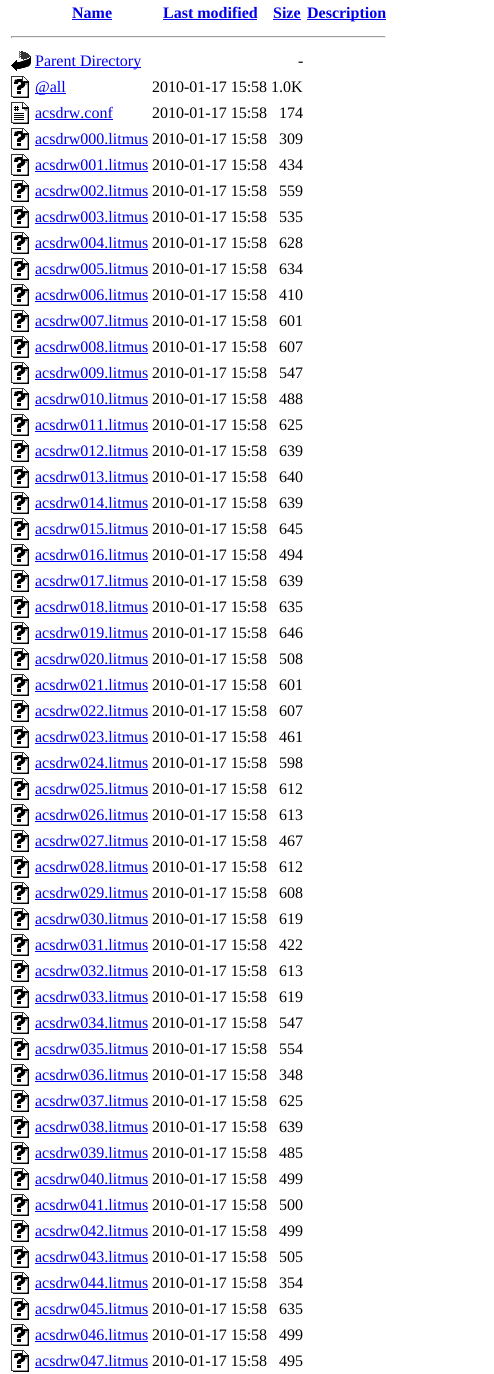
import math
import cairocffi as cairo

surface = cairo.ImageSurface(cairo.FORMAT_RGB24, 494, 1374)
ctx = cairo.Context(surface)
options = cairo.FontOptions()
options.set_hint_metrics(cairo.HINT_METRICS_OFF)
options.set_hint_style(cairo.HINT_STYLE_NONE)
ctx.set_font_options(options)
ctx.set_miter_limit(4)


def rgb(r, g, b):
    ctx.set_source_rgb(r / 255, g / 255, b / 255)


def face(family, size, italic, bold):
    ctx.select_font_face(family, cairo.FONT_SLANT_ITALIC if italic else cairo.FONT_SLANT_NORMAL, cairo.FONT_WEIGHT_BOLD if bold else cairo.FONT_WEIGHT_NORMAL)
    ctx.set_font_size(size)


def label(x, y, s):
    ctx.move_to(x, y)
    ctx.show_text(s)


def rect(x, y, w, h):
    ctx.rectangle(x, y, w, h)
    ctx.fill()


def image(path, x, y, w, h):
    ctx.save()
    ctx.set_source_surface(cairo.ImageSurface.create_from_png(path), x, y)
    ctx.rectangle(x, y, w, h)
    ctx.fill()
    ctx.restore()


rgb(255, 255, 255)
ctx.paint()
face('Liberation Serif', 16, 0, 1)
rgb(0, 0, 238)
label(72, 18, 'Name')
rect(72, 19, 40, 1)
label(163, 18, 'Last modified')
rect(163, 19, 94, 1)
label(273, 18, 'Size')
rect(273, 19, 28, 1)
rect(307, 19, 79, 1)
label(307, 18, 'Description')
rgb(159, 159, 159)
rect(11, 36, 375, 1)
rgb(238, 238, 238)
rect(385, 36, 1, 2)
rect(11, 37, 375, 1)
rgb(159, 159, 159)
rect(11, 36, 1, 2)
image('image0.png', 11, 51, 20, 20)
rgb(0, 0, 238)
rect(35, 67, 106, 1)
face('Liberation Serif', 16, 0, 0)
label(35, 66, 'Parent Directory')
rgb(0, 0, 0)
label(298, 66, '-')
image('image1.png', 11, 76, 18, 22)
rgb(0, 0, 238)
rect(35, 93, 31, 1)
label(35, 92, '@all')
rgb(0, 0, 0)
label(152, 92, '2010-01-17 15:58 1.0K')
image('image2.png', 11, 102, 18, 22)
rgb(0, 0, 238)
label(35, 118, 'acsdrw.conf')
rect(35, 119, 78, 1)
rgb(0, 0, 0)
label(152, 118, '2010-01-17 15:58')
label(279, 118, '174')
image('image1.png', 11, 128, 18, 22)
rgb(0, 0, 238)
label(35, 144, 'acsdrw000.litmus')
rect(35, 145, 113, 1)
rgb(0, 0, 0)
label(152, 144, '2010-01-17 15:58')
label(279, 144, '309')
image('image1.png', 11, 154, 18, 22)
rgb(0, 0, 238)
label(35, 170, 'acsdrw001.litmus')
rect(35, 171, 113, 1)
rgb(0, 0, 0)
label(152, 170, '2010-01-17 15:58')
label(279, 170, '434')
image('image1.png', 11, 180, 18, 22)
rgb(0, 0, 238)
label(35, 196, 'acsdrw002.litmus')
rect(35, 197, 113, 1)
rgb(0, 0, 0)
label(152, 196, '2010-01-17 15:58')
label(279, 196, '559')
image('image1.png', 11, 206, 18, 22)
rgb(0, 0, 238)
label(35, 222, 'acsdrw003.litmus')
rect(35, 223, 113, 1)
rgb(0, 0, 0)
label(152, 222, '2010-01-17 15:58')
label(279, 222, '535')
image('image1.png', 11, 232, 18, 22)
rgb(0, 0, 238)
label(35, 248, 'acsdrw004.litmus')
rect(35, 249, 113, 1)
rgb(0, 0, 0)
label(152, 248, '2010-01-17 15:58')
label(279, 248, '628')
image('image1.png', 11, 258, 18, 22)
rgb(0, 0, 238)
label(35, 274, 'acsdrw005.litmus')
rect(35, 275, 113, 1)
rgb(0, 0, 0)
label(152, 274, '2010-01-17 15:58')
label(279, 274, '634')
image('image1.png', 11, 284, 18, 22)
rgb(0, 0, 238)
label(35, 300, 'acsdrw006.litmus')
rect(35, 301, 113, 1)
rgb(0, 0, 0)
label(152, 300, '2010-01-17 15:58')
label(279, 300, '410')
image('image1.png', 11, 310, 18, 22)
rgb(0, 0, 238)
label(35, 326, 'acsdrw007.litmus')
rect(35, 327, 113, 1)
rgb(0, 0, 0)
label(152, 326, '2010-01-17 15:58')
label(279, 326, '601')
image('image1.png', 11, 336, 18, 22)
rgb(0, 0, 238)
label(35, 352, 'acsdrw008.litmus')
rect(35, 353, 113, 1)
rgb(0, 0, 0)
label(152, 352, '2010-01-17 15:58')
label(279, 352, '607')
image('image1.png', 11, 362, 18, 22)
rgb(0, 0, 238)
label(35, 378, 'acsdrw009.litmus')
rect(35, 379, 113, 1)
rgb(0, 0, 0)
label(152, 378, '2010-01-17 15:58')
label(279, 378, '547')
image('image1.png', 11, 388, 18, 22)
rgb(0, 0, 238)
label(35, 404, 'acsdrw010.litmus')
rect(35, 405, 113, 1)
rgb(0, 0, 0)
label(152, 404, '2010-01-17 15:58')
label(279, 404, '488')
image('image1.png', 11, 414, 18, 22)
rgb(0, 0, 238)
label(35, 430, 'acsdrw011.litmus')
rect(35, 431, 113, 1)
rgb(0, 0, 0)
label(152, 430, '2010-01-17 15:58')
label(279, 430, '625')
image('image1.png', 11, 440, 18, 22)
rgb(0, 0, 238)
label(35, 456, 'acsdrw012.litmus')
rect(35, 457, 113, 1)
rgb(0, 0, 0)
label(152, 456, '2010-01-17 15:58')
label(279, 456, '639')
image('image1.png', 11, 466, 18, 22)
rgb(0, 0, 238)
label(35, 482, 'acsdrw013.litmus')
rect(35, 483, 113, 1)
rgb(0, 0, 0)
label(152, 482, '2010-01-17 15:58')
label(279, 482, '640')
image('image1.png', 11, 492, 18, 22)
rgb(0, 0, 238)
label(35, 508, 'acsdrw014.litmus')
rect(35, 509, 113, 1)
rgb(0, 0, 0)
label(152, 508, '2010-01-17 15:58')
label(279, 508, '639')
image('image1.png', 11, 518, 18, 22)
rgb(0, 0, 238)
label(35, 534, 'acsdrw015.litmus')
rect(35, 535, 113, 1)
rgb(0, 0, 0)
label(152, 534, '2010-01-17 15:58')
label(279, 534, '645')
image('image1.png', 11, 544, 18, 22)
rgb(0, 0, 238)
label(35, 560, 'acsdrw016.litmus')
rect(35, 561, 113, 1)
rgb(0, 0, 0)
label(152, 560, '2010-01-17 15:58')
label(279, 560, '494')
image('image1.png', 11, 570, 18, 22)
rgb(0, 0, 238)
label(35, 586, 'acsdrw017.litmus')
rect(35, 587, 113, 1)
rgb(0, 0, 0)
label(152, 586, '2010-01-17 15:58')
label(279, 586, '639')
image('image1.png', 11, 596, 18, 22)
rgb(0, 0, 238)
label(35, 612, 'acsdrw018.litmus')
rect(35, 613, 113, 1)
rgb(0, 0, 0)
label(152, 612, '2010-01-17 15:58')
label(279, 612, '635')
image('image1.png', 11, 622, 18, 22)
rgb(0, 0, 238)
label(35, 638, 'acsdrw019.litmus')
rect(35, 639, 113, 1)
rgb(0, 0, 0)
label(152, 638, '2010-01-17 15:58')
label(279, 638, '646')
image('image1.png', 11, 648, 18, 22)
rgb(0, 0, 238)
label(35, 664, 'acsdrw020.litmus')
rect(35, 665, 113, 1)
rgb(0, 0, 0)
label(152, 664, '2010-01-17 15:58')
label(279, 664, '508')
image('image1.png', 11, 674, 18, 22)
rgb(0, 0, 238)
label(35, 690, 'acsdrw021.litmus')
rect(35, 691, 113, 1)
rgb(0, 0, 0)
label(152, 690, '2010-01-17 15:58')
label(279, 690, '601')
image('image1.png', 11, 700, 18, 22)
rgb(0, 0, 238)
label(35, 716, 'acsdrw022.litmus')
rect(35, 717, 113, 1)
rgb(0, 0, 0)
label(152, 716, '2010-01-17 15:58')
label(279, 716, '607')
image('image1.png', 11, 726, 18, 22)
rgb(0, 0, 238)
label(35, 742, 'acsdrw023.litmus')
rect(35, 743, 113, 1)
rgb(0, 0, 0)
label(152, 742, '2010-01-17 15:58')
label(279, 742, '461')
image('image1.png', 11, 752, 18, 22)
rgb(0, 0, 238)
label(35, 768, 'acsdrw024.litmus')
rect(35, 769, 113, 1)
rgb(0, 0, 0)
label(152, 768, '2010-01-17 15:58')
label(279, 768, '598')
image('image1.png', 11, 778, 18, 22)
rgb(0, 0, 238)
label(35, 794, 'acsdrw025.litmus')
rect(35, 795, 113, 1)
rgb(0, 0, 0)
label(152, 794, '2010-01-17 15:58')
label(279, 794, '612')
image('image1.png', 11, 804, 18, 22)
rgb(0, 0, 238)
label(35, 820, 'acsdrw026.litmus')
rect(35, 821, 113, 1)
rgb(0, 0, 0)
label(152, 820, '2010-01-17 15:58')
label(279, 820, '613')
image('image1.png', 11, 830, 18, 22)
rgb(0, 0, 238)
label(35, 846, 'acsdrw027.litmus')
rect(35, 847, 113, 1)
rgb(0, 0, 0)
label(152, 846, '2010-01-17 15:58')
label(279, 846, '467')
image('image1.png', 11, 856, 18, 22)
rgb(0, 0, 238)
label(35, 872, 'acsdrw028.litmus')
rect(35, 873, 113, 1)
rgb(0, 0, 0)
label(152, 872, '2010-01-17 15:58')
label(279, 872, '612')
image('image1.png', 11, 882, 18, 22)
rgb(0, 0, 238)
label(35, 898, 'acsdrw029.litmus')
rect(35, 899, 113, 1)
rgb(0, 0, 0)
label(152, 898, '2010-01-17 15:58')
label(279, 898, '608')
image('image1.png', 11, 908, 18, 22)
rgb(0, 0, 238)
label(35, 924, 'acsdrw030.litmus')
rect(35, 925, 113, 1)
rgb(0, 0, 0)
label(152, 924, '2010-01-17 15:58')
label(279, 924, '619')
image('image1.png', 11, 934, 18, 22)
rgb(0, 0, 238)
label(35, 950, 'acsdrw031.litmus')
rect(35, 951, 113, 1)
rgb(0, 0, 0)
label(152, 950, '2010-01-17 15:58')
label(279, 950, '422')
image('image1.png', 11, 960, 18, 22)
rgb(0, 0, 238)
label(35, 976, 'acsdrw032.litmus')
rect(35, 977, 113, 1)
rgb(0, 0, 0)
label(152, 976, '2010-01-17 15:58')
label(279, 976, '613')
image('image1.png', 11, 986, 18, 22)
rgb(0, 0, 238)
label(35, 1002, 'acsdrw033.litmus')
rect(35, 1003, 113, 1)
rgb(0, 0, 0)
label(152, 1002, '2010-01-17 15:58')
label(279, 1002, '619')
image('image1.png', 11, 1012, 18, 22)
rgb(0, 0, 238)
label(35, 1028, 'acsdrw034.litmus')
rect(35, 1029, 113, 1)
rgb(0, 0, 0)
label(152, 1028, '2010-01-17 15:58')
label(279, 1028, '547')
image('image1.png', 11, 1038, 18, 22)
rgb(0, 0, 238)
label(35, 1054, 'acsdrw035.litmus')
rect(35, 1055, 113, 1)
rgb(0, 0, 0)
label(152, 1054, '2010-01-17 15:58')
label(279, 1054, '554')
image('image1.png', 11, 1064, 18, 22)
rgb(0, 0, 238)
label(35, 1080, 'acsdrw036.litmus')
rect(35, 1081, 113, 1)
rgb(0, 0, 0)
label(152, 1080, '2010-01-17 15:58')
label(279, 1080, '348')
image('image1.png', 11, 1090, 18, 22)
rgb(0, 0, 238)
label(35, 1106, 'acsdrw037.litmus')
rect(35, 1107, 113, 1)
rgb(0, 0, 0)
label(152, 1106, '2010-01-17 15:58')
label(279, 1106, '625')
image('image1.png', 11, 1116, 18, 22)
rgb(0, 0, 238)
label(35, 1132, 'acsdrw038.litmus')
rect(35, 1133, 113, 1)
rgb(0, 0, 0)
label(152, 1132, '2010-01-17 15:58')
label(279, 1132, '639')
image('image1.png', 11, 1142, 18, 22)
rgb(0, 0, 238)
label(35, 1158, 'acsdrw039.litmus')
rect(35, 1159, 113, 1)
rgb(0, 0, 0)
label(152, 1158, '2010-01-17 15:58')
label(279, 1158, '485')
image('image1.png', 11, 1168, 18, 22)
rgb(0, 0, 238)
label(35, 1184, 'acsdrw040.litmus')
rect(35, 1185, 113, 1)
rgb(0, 0, 0)
label(152, 1184, '2010-01-17 15:58')
label(279, 1184, '499')
image('image1.png', 11, 1194, 18, 22)
rgb(0, 0, 238)
label(35, 1210, 'acsdrw041.litmus')
rect(35, 1211, 113, 1)
rgb(0, 0, 0)
label(152, 1210, '2010-01-17 15:58')
label(279, 1210, '500')
image('image1.png', 11, 1220, 18, 22)
rgb(0, 0, 238)
label(35, 1236, 'acsdrw042.litmus')
rect(35, 1237, 113, 1)
rgb(0, 0, 0)
label(152, 1236, '2010-01-17 15:58')
label(279, 1236, '499')
image('image1.png', 11, 1246, 18, 22)
rgb(0, 0, 238)
label(35, 1262, 'acsdrw043.litmus')
rect(35, 1263, 113, 1)
rgb(0, 0, 0)
label(152, 1262, '2010-01-17 15:58')
label(279, 1262, '505')
image('image1.png', 11, 1272, 18, 22)
rgb(0, 0, 238)
label(35, 1288, 'acsdrw044.litmus')
rect(35, 1289, 113, 1)
rgb(0, 0, 0)
label(152, 1288, '2010-01-17 15:58')
label(279, 1288, '354')
image('image1.png', 11, 1298, 18, 22)
rgb(0, 0, 238)
label(35, 1314, 'acsdrw045.litmus')
rect(35, 1315, 113, 1)
rgb(0, 0, 0)
label(152, 1314, '2010-01-17 15:58')
label(279, 1314, '635')
image('image1.png', 11, 1324, 18, 22)
rgb(0, 0, 238)
label(35, 1340, 'acsdrw046.litmus')
rect(35, 1341, 113, 1)
rgb(0, 0, 0)
label(152, 1340, '2010-01-17 15:58')
label(279, 1340, '499')
image('image1.png', 11, 1350, 18, 22)
rgb(0, 0, 238)
label(35, 1366, 'acsdrw047.litmus')
rect(35, 1367, 113, 1)
rgb(0, 0, 0)
label(152, 1366, '2010-01-17 15:58')
label(279, 1366, '495')
surface.write_to_png('render.png')
